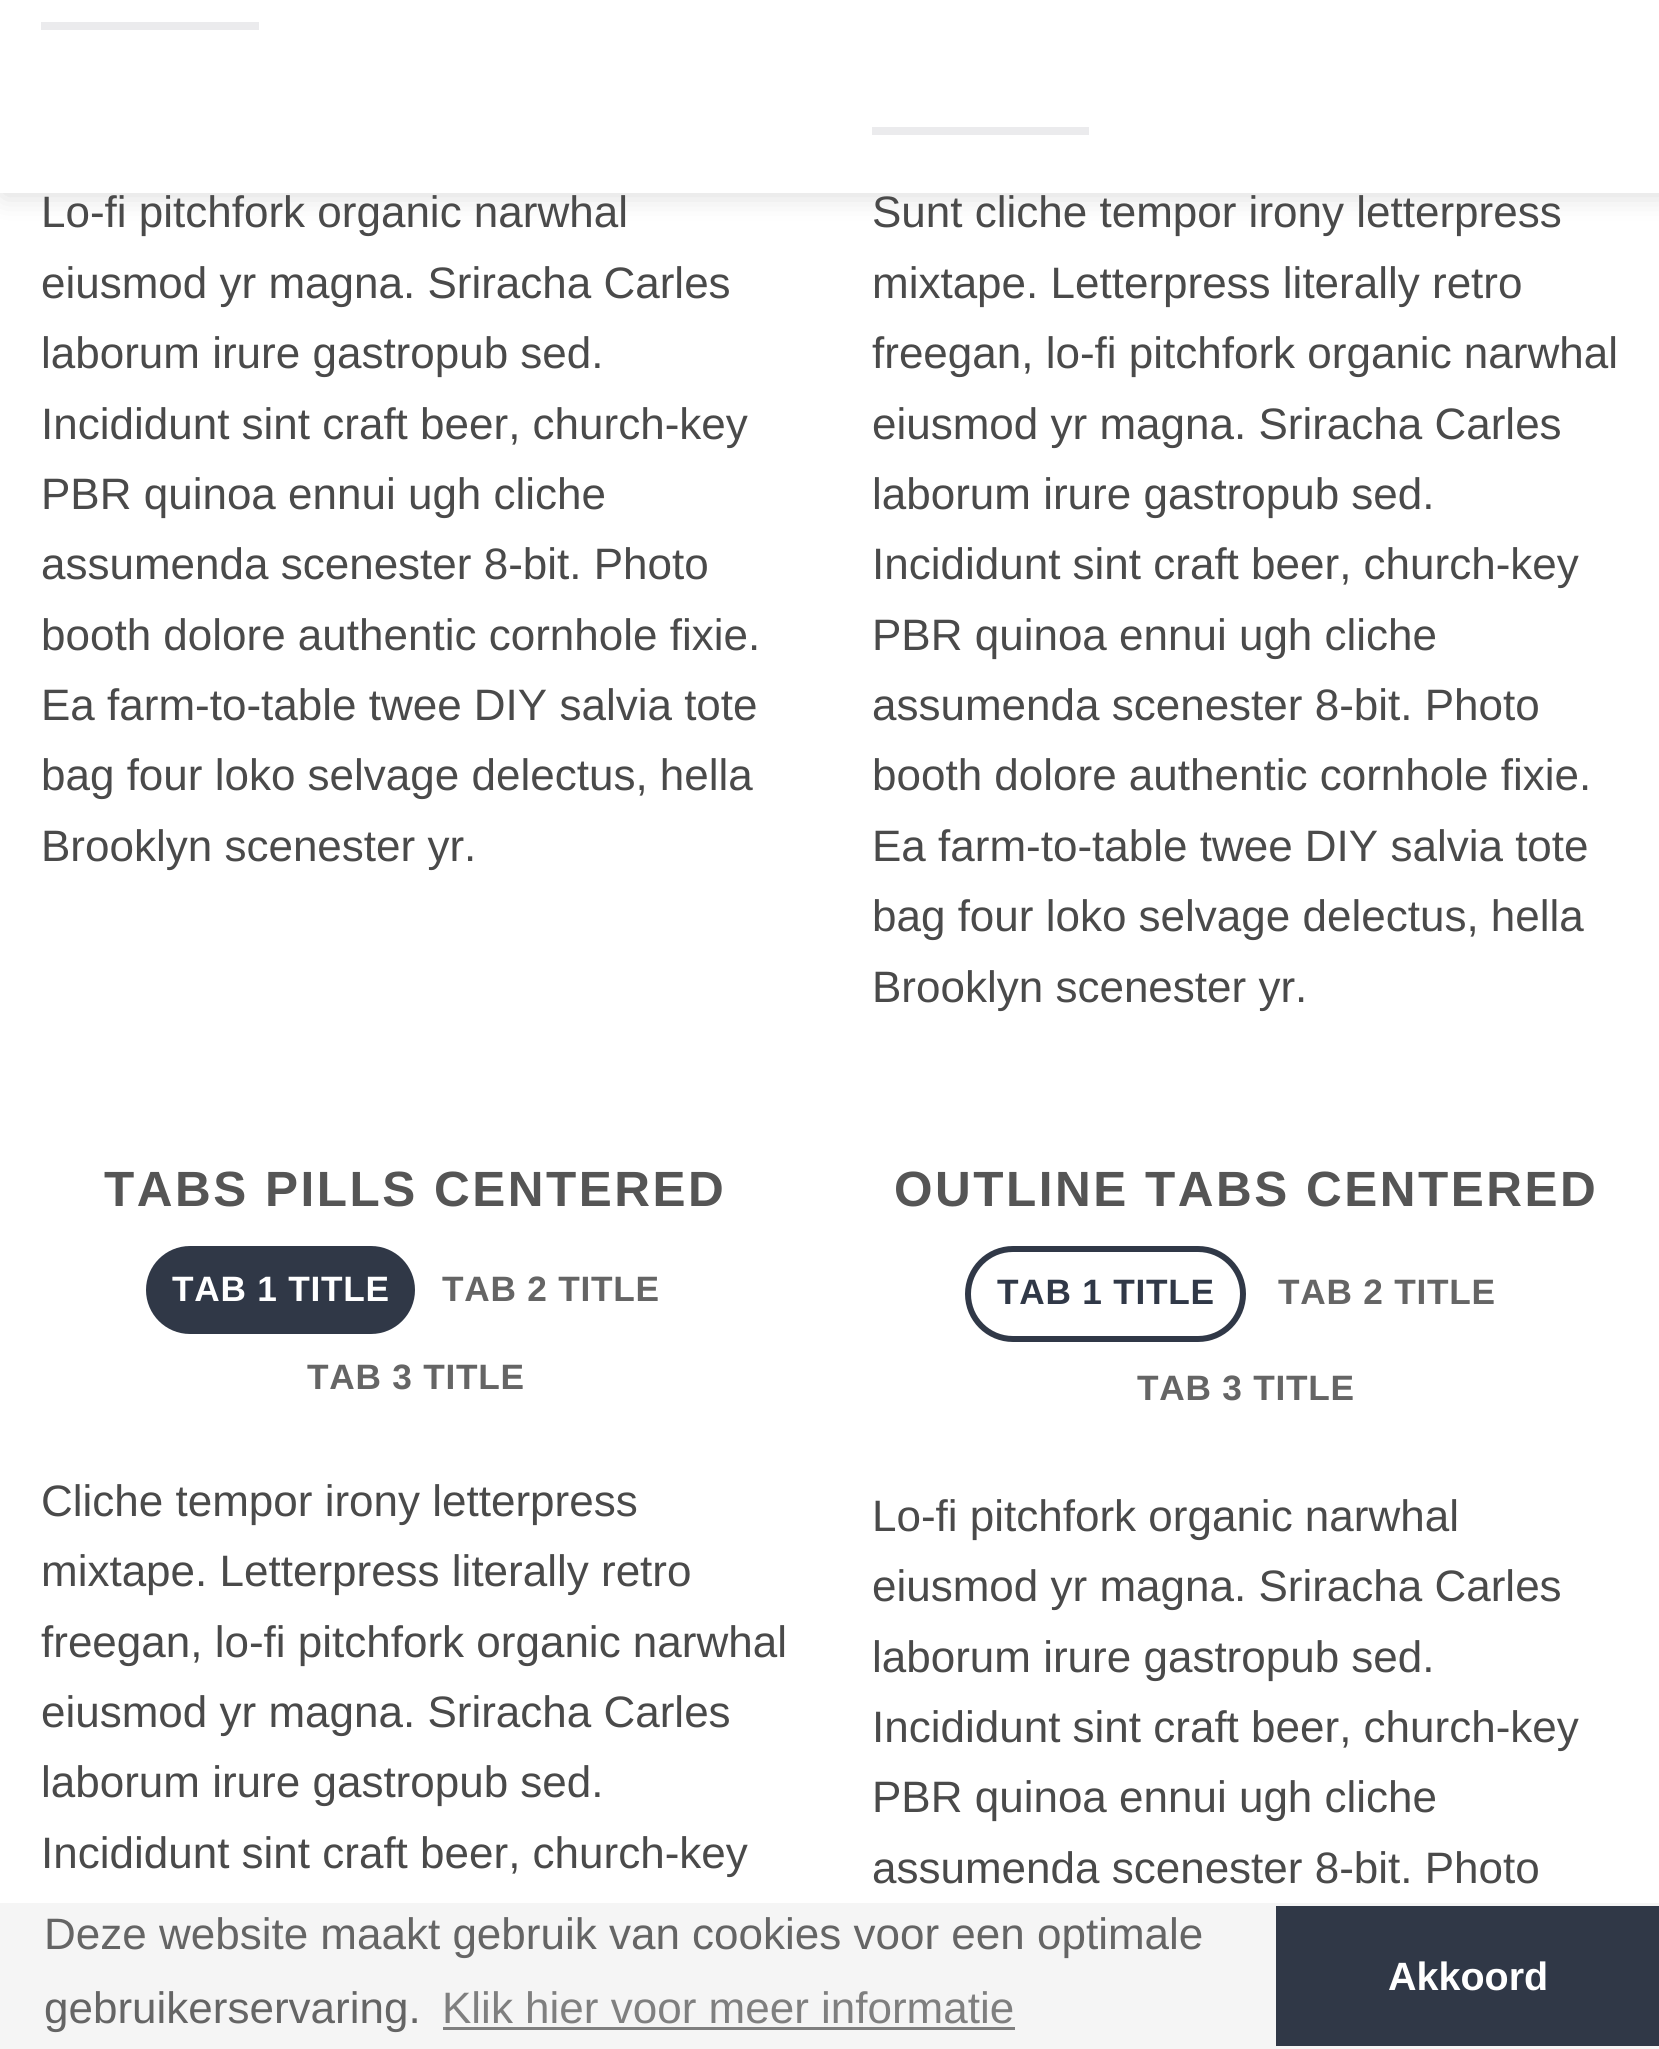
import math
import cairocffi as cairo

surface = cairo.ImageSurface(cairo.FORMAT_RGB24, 1659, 2049)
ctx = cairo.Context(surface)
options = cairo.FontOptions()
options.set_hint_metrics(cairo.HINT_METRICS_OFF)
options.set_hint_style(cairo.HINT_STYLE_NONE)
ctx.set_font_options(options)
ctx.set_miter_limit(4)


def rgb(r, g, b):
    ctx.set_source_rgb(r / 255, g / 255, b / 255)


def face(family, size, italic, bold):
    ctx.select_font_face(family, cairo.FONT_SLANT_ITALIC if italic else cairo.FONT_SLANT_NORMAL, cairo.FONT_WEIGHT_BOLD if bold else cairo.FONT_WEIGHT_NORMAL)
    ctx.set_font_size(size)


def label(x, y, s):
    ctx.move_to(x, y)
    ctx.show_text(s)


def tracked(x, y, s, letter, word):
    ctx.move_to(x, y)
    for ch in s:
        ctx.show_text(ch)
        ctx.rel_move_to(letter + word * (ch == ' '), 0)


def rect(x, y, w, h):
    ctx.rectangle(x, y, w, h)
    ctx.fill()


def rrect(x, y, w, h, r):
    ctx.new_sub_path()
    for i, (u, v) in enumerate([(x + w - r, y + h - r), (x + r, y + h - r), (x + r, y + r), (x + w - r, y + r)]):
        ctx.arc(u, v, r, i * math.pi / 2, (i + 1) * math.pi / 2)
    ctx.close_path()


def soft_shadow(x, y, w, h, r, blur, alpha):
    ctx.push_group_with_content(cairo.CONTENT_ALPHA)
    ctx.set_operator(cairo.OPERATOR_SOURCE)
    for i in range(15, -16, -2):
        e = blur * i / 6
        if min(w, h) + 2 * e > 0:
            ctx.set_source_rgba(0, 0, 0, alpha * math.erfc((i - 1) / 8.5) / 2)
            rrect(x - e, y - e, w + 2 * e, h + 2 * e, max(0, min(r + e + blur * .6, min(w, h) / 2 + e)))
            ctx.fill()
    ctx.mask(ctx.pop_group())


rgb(255, 255, 255)
ctx.paint()
rgb(48, 56, 71)
rect(41, 22, 218, 8)
rect(872, 127, 217, 8)
ctx.save()
ctx.set_fill_rule(cairo.FILL_RULE_EVEN_ODD)
ctx.new_path()
ctx.move_to(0, 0)
ctx.line_to(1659, 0)
ctx.line_to(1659, 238)
ctx.line_to(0, 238)
ctx.close_path()
ctx.move_to(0, 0)
ctx.line_to(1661, 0)
ctx.line_to(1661, 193)
ctx.line_to(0, 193)
ctx.close_path()
ctx.clip()
rgb(0, 0, 0)
soft_shadow(3, 3, 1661, 192, 0, 14, 0.15)
ctx.restore()
ctx.set_source_rgba(1, 1, 1, 0.9)
rect(0, 22, 1659, 171)
face('Liberation Sans', 44, 0, 0)
rgb(74, 74, 74)
label(41, 227, 'Lo-fi pitchfork organic narwhal')
label(41, 298, 'eiusmod yr magna. Sriracha Carles')
label(41, 368, 'laborum irure gastropub sed.')
label(41, 439, 'Incididunt sint craft beer, church-key')
label(41, 509, 'PBR quinoa ennui ugh cliche')
label(41, 579, 'assumenda scenester 8-bit. Photo')
label(41, 650, 'booth dolore authentic cornhole fixie.')
label(41, 720, 'Ea farm-to-table twee DIY salvia tote')
label(41, 790, 'bag four loko selvage delectus, hella')
label(41, 861, 'Brooklyn scenester yr.')
label(872, 227, 'Sunt cliche tempor irony letterpress')
label(872, 298, 'mixtape. Letterpress literally retro')
label(872, 368, 'freegan, lo-fi pitchfork organic narwhal')
label(872, 439, 'eiusmod yr magna. Sriracha Carles')
label(872, 509, 'laborum irure gastropub sed.')
label(872, 579, 'Incididunt sint craft beer, church-key')
label(872, 650, 'PBR quinoa ennui ugh cliche')
label(872, 720, 'assumenda scenester 8-bit. Photo')
label(872, 790, 'booth dolore authentic cornhole fixie.')
label(872, 861, 'Ea farm-to-table twee DIY salvia tote')
label(872, 931, 'bag four loko selvage delectus, hella')
label(872, 1002, 'Brooklyn scenester yr.')
face('Liberation Sans', 49.5, 0, 1)
rgb(85, 85, 85)
tracked(104, 1206, 'TABS PILLS CENTERED', 2.5, 0)
rgb(48, 56, 71)
rrect(146, 1246, 269, 88, 44)
ctx.fill()
face('Liberation Sans', 35.25, 0, 1)
rgb(255, 255, 255)
tracked(172, 1301, 'TAB 1 TITLE', 0.75, 0)
rgb(101, 101, 101)
tracked(442, 1301, 'TAB 2 TITLE', 0.75, 0)
tracked(307, 1389, 'TAB 3 TITLE', 0.75, 0)
face('Liberation Sans', 44, 0, 0)
rgb(74, 74, 74)
label(41, 1516, 'Cliche tempor irony letterpress')
label(41, 1586, 'mixtape. Letterpress literally retro')
label(41, 1657, 'freegan, lo-fi pitchfork organic narwhal')
label(41, 1727, 'eiusmod yr magna. Sriracha Carles')
label(41, 1797, 'laborum irure gastropub sed.')
label(41, 1868, 'Incididunt sint craft beer, church-key')
face('Liberation Sans', 49.5, 0, 1)
rgb(85, 85, 85)
tracked(894, 1206, 'OUTLINE TABS CENTERED', 2.5, 0)
rrect(968, 1249, 275, 90, 45)
rgb(48, 56, 71)
ctx.set_line_width(6)
ctx.stroke()
face('Liberation Sans', 35.25, 0, 1)
tracked(997, 1304, 'TAB 1 TITLE', 0.75, 0)
rgb(101, 101, 101)
tracked(1278, 1304, 'TAB 2 TITLE', 0.75, 0)
tracked(1137, 1400, 'TAB 3 TITLE', 0.75, 0)
face('Liberation Sans', 44, 0, 0)
rgb(74, 74, 74)
label(872, 1531, 'Lo-fi pitchfork organic narwhal')
label(872, 1601, 'eiusmod yr magna. Sriracha Carles')
label(872, 1672, 'laborum irure gastropub sed.')
label(872, 1742, 'Incididunt sint craft beer, church-key')
label(872, 1812, 'PBR quinoa ennui ugh cliche')
label(872, 1883, 'assumenda scenester 8-bit. Photo')
rgb(245, 245, 245)
rect(0, 1903, 1659, 146)
rgb(101, 101, 101)
label(44, 1949, 'Deze website maakt gebruik van cookies voor een optimale')
label(44, 2023, 'gebruikerservaring.')
rgb(127, 127, 127)
label(442, 2023, 'Klik hier voor meer informatie')
rect(443, 2027, 572, 3)
rgb(48, 56, 71)
rect(1276, 1906, 383, 140)
face('Liberation Sans', 39.5, 0, 1)
rgb(255, 255, 255)
label(1388, 1990, 'Akkoord')
surface.write_to_png('render.png')
